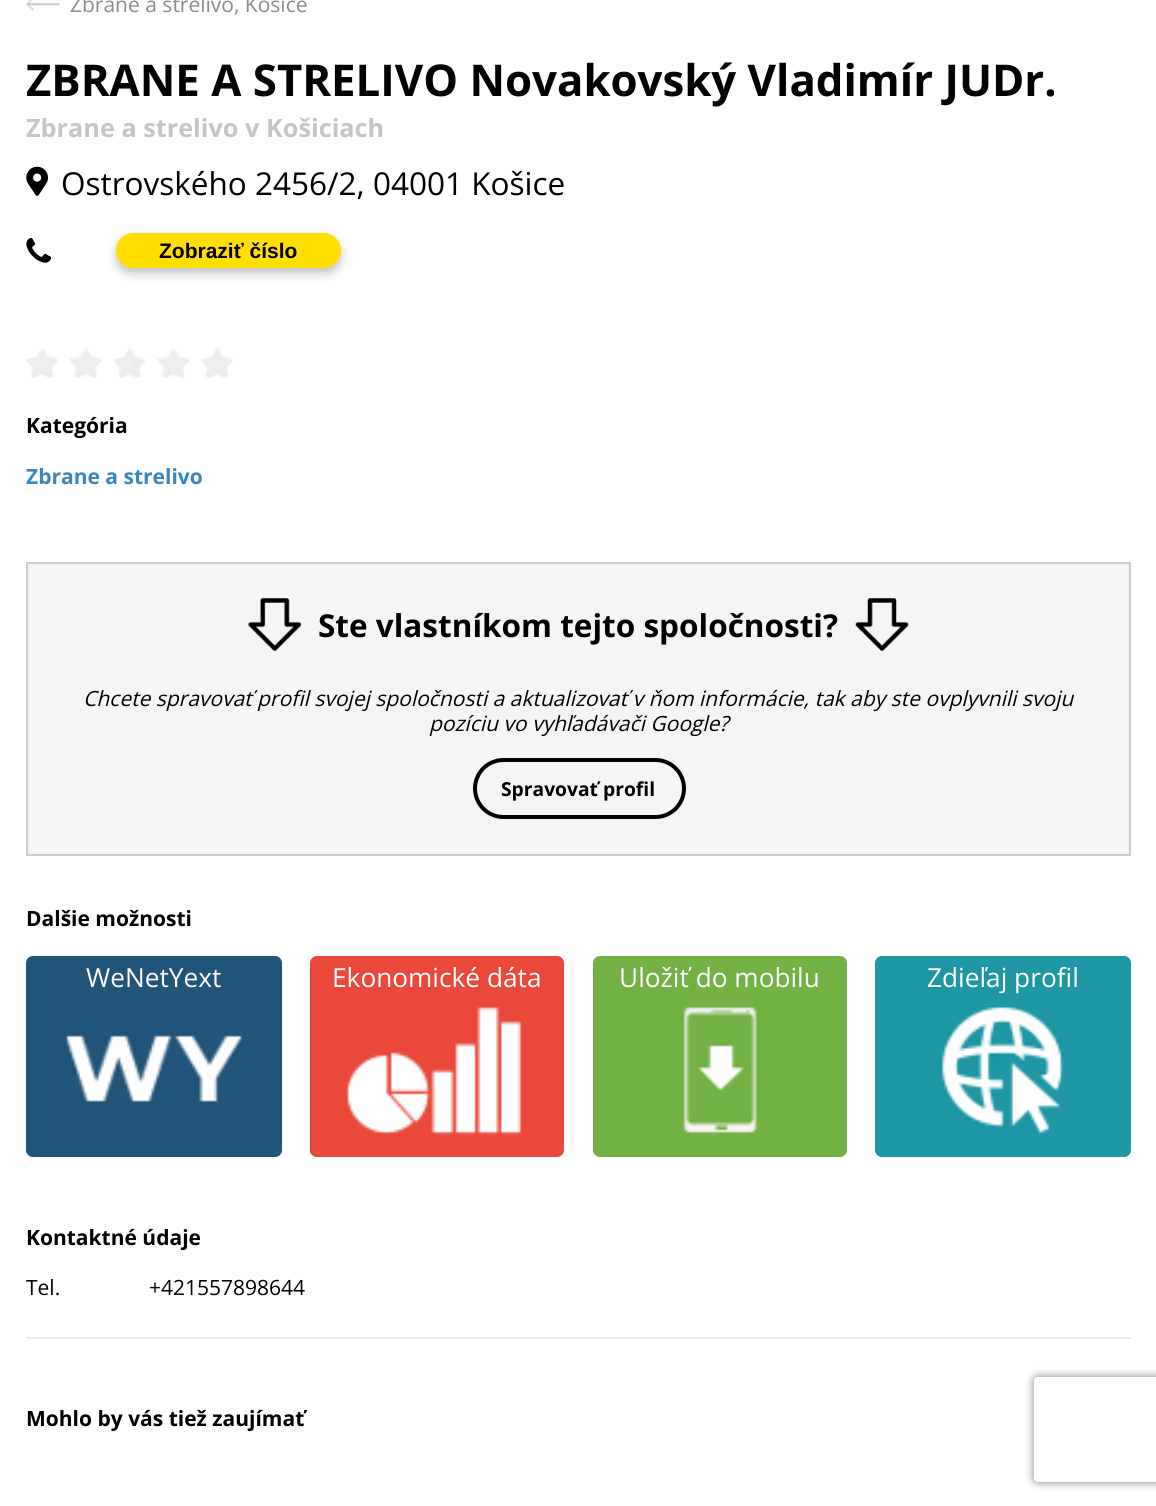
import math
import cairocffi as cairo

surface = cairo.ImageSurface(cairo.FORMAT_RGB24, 1156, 1506)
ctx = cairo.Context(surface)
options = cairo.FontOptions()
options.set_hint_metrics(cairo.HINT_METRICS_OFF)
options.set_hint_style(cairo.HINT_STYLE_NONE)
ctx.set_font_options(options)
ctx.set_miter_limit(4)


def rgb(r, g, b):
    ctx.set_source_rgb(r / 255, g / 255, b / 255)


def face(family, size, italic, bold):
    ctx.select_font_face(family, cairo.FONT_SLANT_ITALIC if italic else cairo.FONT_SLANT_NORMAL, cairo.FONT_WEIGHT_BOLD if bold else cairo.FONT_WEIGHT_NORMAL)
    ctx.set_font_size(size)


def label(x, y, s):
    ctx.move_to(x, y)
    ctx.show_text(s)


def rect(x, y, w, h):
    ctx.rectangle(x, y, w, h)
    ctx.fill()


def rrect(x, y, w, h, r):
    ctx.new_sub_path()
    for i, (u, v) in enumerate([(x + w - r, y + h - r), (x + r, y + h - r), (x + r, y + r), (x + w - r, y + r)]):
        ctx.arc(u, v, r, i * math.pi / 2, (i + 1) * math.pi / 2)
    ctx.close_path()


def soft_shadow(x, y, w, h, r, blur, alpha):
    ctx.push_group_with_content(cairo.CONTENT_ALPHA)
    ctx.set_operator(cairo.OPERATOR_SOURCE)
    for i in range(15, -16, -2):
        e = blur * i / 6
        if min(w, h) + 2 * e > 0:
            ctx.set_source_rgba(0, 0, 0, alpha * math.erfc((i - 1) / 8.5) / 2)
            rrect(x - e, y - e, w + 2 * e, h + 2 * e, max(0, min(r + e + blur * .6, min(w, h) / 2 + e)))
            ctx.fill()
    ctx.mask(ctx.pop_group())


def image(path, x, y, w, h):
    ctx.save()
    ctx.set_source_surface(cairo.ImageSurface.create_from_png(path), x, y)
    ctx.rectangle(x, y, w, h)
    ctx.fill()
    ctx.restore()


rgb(255, 255, 255)
ctx.paint()
image('image0.png', 26, 0, 34, 11)
face('Open Sans', 21, 0, 0)
rgb(139, 139, 139)
label(70, 12, 'Zbrane a strelivo, Košice')
face('Open Sans', 43.75, 0, 1)
rgb(0, 0, 0)
label(26, 96, 'ZBRANE A STRELIVO Novakovský Vladimír JUDr.')
face('Open Sans', 25.25, 0, 1)
rgb(197, 197, 197)
label(26, 137, 'Zbrane a strelivo v Košiciach')
image('image1.png', 26, 166, 22, 30)
face('Open Sans', 31.5, 0, 0)
rgb(0, 0, 0)
label(61, 195, 'Ostrovského 2456/2, 04001 Košice')
image('image2.png', 26, 238, 25, 25)
rgb(0, 0, 0)
soft_shadow(116, 238, 225, 35, 17.5, 5, 0.25)
rgb(255, 222, 0)
rrect(116, 233, 225, 35, 17.5)
ctx.fill()
face('Liberation Sans', 21, 0, 1)
rgb(0, 0, 0)
label(159, 258, 'Zobraziť číslo')
image('image3.png', 26, 348, 16, 30)
image('image4.png', 42, 348, 16, 30)
image('image5.png', 70, 348, 16, 30)
image('image6.png', 86, 348, 16, 30)
image('image7.png', 114, 348, 16, 30)
image('image8.png', 129, 348, 17, 30)
image('image9.png', 157, 348, 17, 30)
image('image10.png', 173, 348, 16, 30)
image('image3.png', 201, 348, 16, 30)
image('image4.png', 217, 348, 16, 30)
face('Open Sans', 21, 0, 1)
label(26, 433, 'Kategória')
rgb(56, 133, 193)
label(26, 484, 'Zbrane a strelivo')
rgb(245, 245, 245)
ctx.rectangle(27, 563, 1103, 292)
ctx.fill_preserve()
rgb(204, 204, 204)
ctx.stroke()
image('image11.png', 248, 598, 53, 53)
face('Open Sans', 31.5, 0, 1)
rgb(0, 0, 0)
label(318, 637, 'Ste vlastníkom tejto spoločnosti?')
image('image12.png', 855, 598, 54, 53)
face('Open Sans', 21, 1, 0)
label(83, 706, 'Chcete spravovať profil svojej spoločnosti a aktualizovať v ňom informácie, tak aby ste ovplyvnili svoju')
label(429, 731, 'pozíciu vo vyhľadávači Google?')
rrect(475, 760, 209, 57, 28.5)
ctx.set_line_width(4)
ctx.stroke()
face('Open Sans', 19.25, 0, 1)
label(501, 796, 'Spravovať profil')
face('Open Sans', 21, 0, 1)
label(26, 926, 'Dalšie možnosti')
rgb(33, 84, 121)
rrect(26, 956, 256, 201, 7)
ctx.fill()
image('image13.png', 26, 1035, 256, 121)
face('Open Sans', 26.25, 0, 0)
rgb(255, 255, 255)
label(86, 987, 'WeNetYext')
rgb(234, 72, 58)
rrect(310, 956, 254, 201, 7)
ctx.fill()
image('image14.png', 309, 969, 213, 188)
rgb(255, 255, 255)
label(332, 987, 'Ekonomické dáta')
rgb(114, 177, 67)
rrect(593, 956, 254, 201, 7)
ctx.fill()
image('image15.png', 593, 969, 254, 188)
rgb(255, 255, 255)
label(619, 987, 'Uložiť do mobilu')
rgb(31, 150, 164)
rrect(875, 956, 256, 201, 7)
ctx.fill()
image('image16.png', 875, 969, 189, 188)
rgb(255, 255, 255)
label(927, 987, 'Zdieľaj profil')
rgb(236, 236, 236)
rect(26, 1337, 1105, 2)
face('Open Sans', 21, 0, 1)
rgb(0, 0, 0)
label(26, 1245, 'Kontaktné údaje')
face('Open Sans', 21, 0, 0)
label(26, 1295, 'Tel.')
label(149, 1295, '+421557898644')
face('Open Sans', 21, 0, 1)
label(26, 1426, 'Mohlo by vás tiež zaujímať')
ctx.save()
ctx.set_fill_rule(cairo.FILL_RULE_EVEN_ODD)
ctx.new_path()
ctx.move_to(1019, 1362)
ctx.line_to(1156, 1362)
ctx.line_to(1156, 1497)
ctx.line_to(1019, 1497)
ctx.close_path()
ctx.move_to(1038, 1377)
ctx.line_to(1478, 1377)
ctx.curve_to(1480, 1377, 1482, 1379, 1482, 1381)
ctx.line_to(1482, 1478)
ctx.curve_to(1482, 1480, 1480, 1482, 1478, 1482)
ctx.line_to(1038, 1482)
ctx.curve_to(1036, 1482, 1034, 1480, 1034, 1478)
ctx.line_to(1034, 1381)
ctx.curve_to(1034, 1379, 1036, 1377, 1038, 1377)
ctx.close_path()
ctx.clip()
rgb(128, 128, 128)
soft_shadow(1034, 1377, 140, 105, 4, 4.5, 1)
ctx.restore()
surface.write_to_png('render.png')
